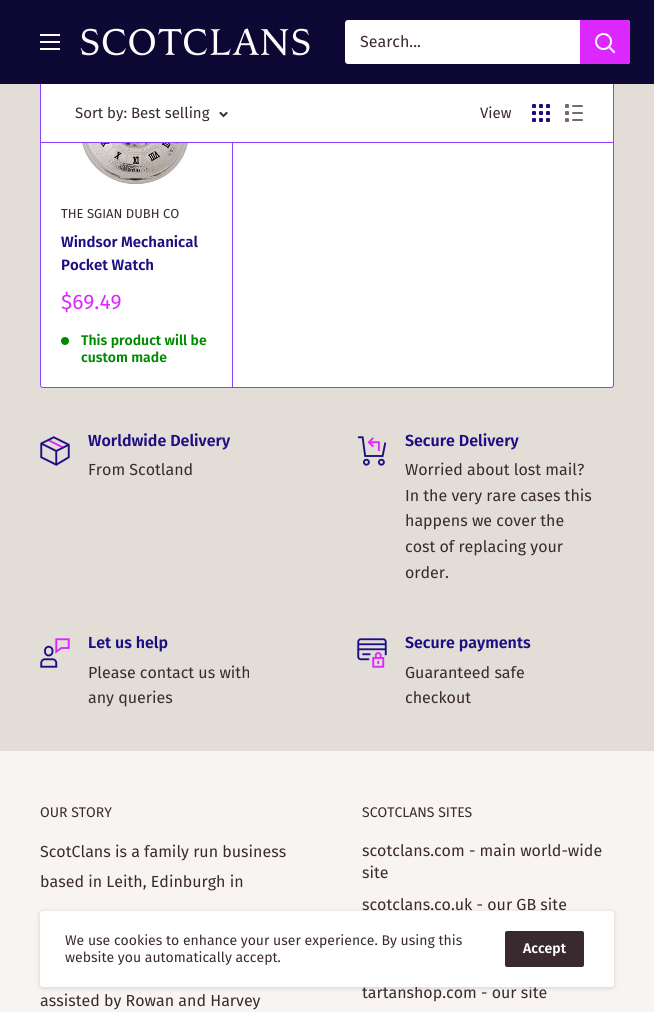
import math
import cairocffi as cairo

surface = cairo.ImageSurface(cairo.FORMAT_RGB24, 654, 1012)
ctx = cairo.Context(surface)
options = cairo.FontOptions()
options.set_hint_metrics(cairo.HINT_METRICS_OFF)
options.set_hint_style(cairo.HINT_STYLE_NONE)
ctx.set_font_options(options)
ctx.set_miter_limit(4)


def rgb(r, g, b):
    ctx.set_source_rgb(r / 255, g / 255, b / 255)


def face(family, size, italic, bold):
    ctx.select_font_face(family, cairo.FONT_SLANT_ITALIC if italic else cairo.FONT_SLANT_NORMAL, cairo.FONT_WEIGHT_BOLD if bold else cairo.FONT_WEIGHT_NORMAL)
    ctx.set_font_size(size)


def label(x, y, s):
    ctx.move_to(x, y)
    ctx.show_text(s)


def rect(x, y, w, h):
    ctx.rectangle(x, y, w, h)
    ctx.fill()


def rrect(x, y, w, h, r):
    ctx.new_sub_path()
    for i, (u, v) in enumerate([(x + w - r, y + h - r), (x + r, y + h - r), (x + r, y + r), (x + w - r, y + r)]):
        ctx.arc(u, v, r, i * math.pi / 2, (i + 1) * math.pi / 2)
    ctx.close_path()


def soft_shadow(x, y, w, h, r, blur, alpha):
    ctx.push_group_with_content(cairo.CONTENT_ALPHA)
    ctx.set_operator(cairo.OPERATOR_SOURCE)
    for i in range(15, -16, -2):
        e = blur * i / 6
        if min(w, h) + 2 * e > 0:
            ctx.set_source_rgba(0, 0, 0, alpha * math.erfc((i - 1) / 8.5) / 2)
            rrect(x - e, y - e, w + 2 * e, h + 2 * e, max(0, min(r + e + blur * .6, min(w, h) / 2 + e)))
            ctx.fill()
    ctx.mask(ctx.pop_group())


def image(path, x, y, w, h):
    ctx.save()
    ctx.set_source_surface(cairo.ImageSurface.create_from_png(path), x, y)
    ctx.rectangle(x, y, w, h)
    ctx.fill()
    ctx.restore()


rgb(226, 221, 215)
ctx.paint()
rgb(255, 255, 255)
rrect(40.5, -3.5, 573, 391, 2.5)
ctx.fill_preserve()
rgb(138, 64, 255)
ctx.set_line_width(1)
ctx.stroke()
rgb(255, 255, 255)
rrect(41, 14, 572, 373, 3)
ctx.fill()
ctx.new_path()
ctx.move_to(44, 14)
ctx.line_to(232, 14)
ctx.line_to(232, 387)
ctx.line_to(44, 387)
ctx.curve_to(42.5, 387, 41, 385.5, 41, 384)
ctx.line_to(41, 17)
ctx.curve_to(41, 15.5, 42.5, 14, 44, 14)
ctx.close_path()
ctx.fill()
rgb(13, 8, 52)
rect(0, 0, 654, 84)
image('image0.png', 40, 34, 20, 16)
image('image1.png', 80, 28, 230, 28)
rgb(255, 255, 255)
rrect(345, 20, 285, 44, 3)
ctx.fill()
face('Fira Sans', 16, 0, 0)
rgb(58, 42, 47)
label(360, 47, 'Search...')
rgb(220, 40, 255)
ctx.new_path()
ctx.move_to(580, 20)
ctx.line_to(627, 20)
ctx.curve_to(628.5, 20, 630, 21.5, 630, 23)
ctx.line_to(630, 61)
ctx.curve_to(630, 62.5, 628.5, 64, 627, 64)
ctx.line_to(580, 64)
ctx.close_path()
ctx.fill()
ctx.new_path()
ctx.move_to(614, 52)
ctx.line_to(609, 47)
rgb(255, 255, 255)
ctx.set_line_width(2)
ctx.set_line_cap(cairo.LINE_CAP_SQUARE)
ctx.stroke()
ctx.arc(603.5, 41.5, 7.5, 0, 2 * math.pi)
ctx.set_line_cap(cairo.LINE_CAP_BUTT)
ctx.stroke()
rgb(138, 64, 255)
rect(41, 142, 572, 1)
face('Fira Sans', 15, 0, 0)
rgb(58, 42, 47)
label(75, 118, 'Sort by: Best selling')
ctx.new_path()
ctx.move_to(226.5, 113)
ctx.line_to(223.5, 116)
ctx.line_to(220.5, 113)
ctx.set_line_width(1.9)
ctx.set_line_cap(cairo.LINE_CAP_SQUARE)
ctx.stroke()
label(480, 118, 'View')
image('image2.png', 532, 104, 18, 18)
image('image3.png', 565, 104, 18, 18)
image('image4.png', 81, 143, 115, 42)
rgb(138, 64, 255)
rect(232, 143, 1, 244)
face('Fira Sans', 13, 0, 0)
rgb(58, 42, 47)
label(61, 218, 'THE SGIAN DUBH CO')
face('Fira Sans SemiBold', 15, 0, 0)
rgb(28, 15, 129)
label(61, 247, 'Windsor Mechanical')
label(61, 270, 'Pocket Watch')
face('Fira Sans', 21, 0, 0)
rgb(220, 40, 255)
label(61, 309, '$69.49')
rgb(0, 138, 0)
ctx.new_path()
ctx.arc(65, 341, 4, 0, 2 * math.pi)
ctx.fill()
face('Fira Sans SemiBold', 14, 0, 0)
label(81, 345, 'This product will be')
label(81, 362, 'custom made')
image('image5.png', 40, 436, 30, 30)
face('Fira Sans SemiBold', 16, 0, 0)
rgb(28, 15, 129)
label(88, 446, 'Worldwide Delivery')
face('Fira Sans', 16, 0, 0)
rgb(58, 42, 47)
label(88, 475, 'From Scotland')
image('image6.png', 357, 436, 30, 30)
face('Fira Sans SemiBold', 16, 0, 0)
rgb(28, 15, 129)
label(405, 446, 'Secure Delivery')
face('Fira Sans', 16, 0, 0)
rgb(58, 42, 47)
label(405, 475, 'Worried about lost mail?')
label(405, 501, 'In the very rare cases this')
label(405, 526, 'happens we cover the')
label(405, 552, 'cost of replacing your')
label(405, 578, 'order.')
image('image7.png', 40, 638, 30, 30)
face('Fira Sans SemiBold', 16, 0, 0)
rgb(28, 15, 129)
label(88, 648, 'Let us help')
face('Fira Sans', 16, 0, 0)
rgb(58, 42, 47)
label(88, 678, 'Please contact us with')
label(88, 703, 'any queries')
image('image8.png', 357, 638, 30, 30)
face('Fira Sans SemiBold', 16, 0, 0)
rgb(28, 15, 129)
label(405, 648, 'Secure payments')
face('Fira Sans', 16, 0, 0)
rgb(58, 42, 47)
label(405, 678, 'Guaranteed safe')
label(405, 703, 'checkout')
rgb(247, 244, 242)
rect(0, 751, 654, 261)
face('Fira Sans', 14, 0, 0)
rgb(58, 42, 47)
label(40, 817, 'OUR STORY')
face('Fira Sans', 16, 0, 0)
label(40, 857, 'ScotClans is a family run business')
label(40, 887, 'based in Leith, Edinburgh in')
label(40, 1006, 'assisted by Rowan and Harvey')
face('Fira Sans', 14, 0, 0)
label(362, 817, 'SCOTCLANS SITES')
face('Fira Sans', 16, 0, 0)
label(362, 856, 'scotclans.com - main world-wide')
label(362, 878, 'site')
label(362, 910, 'scotclans.co.uk - our GB site')
label(362, 998, 'tartanshop.com - our site')
rgb(0, 0, 0)
soft_shadow(39, 911, 576, 78, 4, 2, 0.1)
rgb(255, 255, 255)
rrect(40, 911, 574, 76, 3)
ctx.fill()
face('Fira Sans', 14, 0, 0)
rgb(58, 42, 47)
label(65, 945, 'We use cookies to enhance your user experience. By using this')
label(65, 962, 'website you automatically accept.')
rrect(505, 931, 79, 36, 2)
ctx.fill()
face('Fira Sans SemiBold', 14, 0, 0)
rgb(255, 255, 255)
label(523, 953, 'Accept')
surface.write_to_png('render.png')
